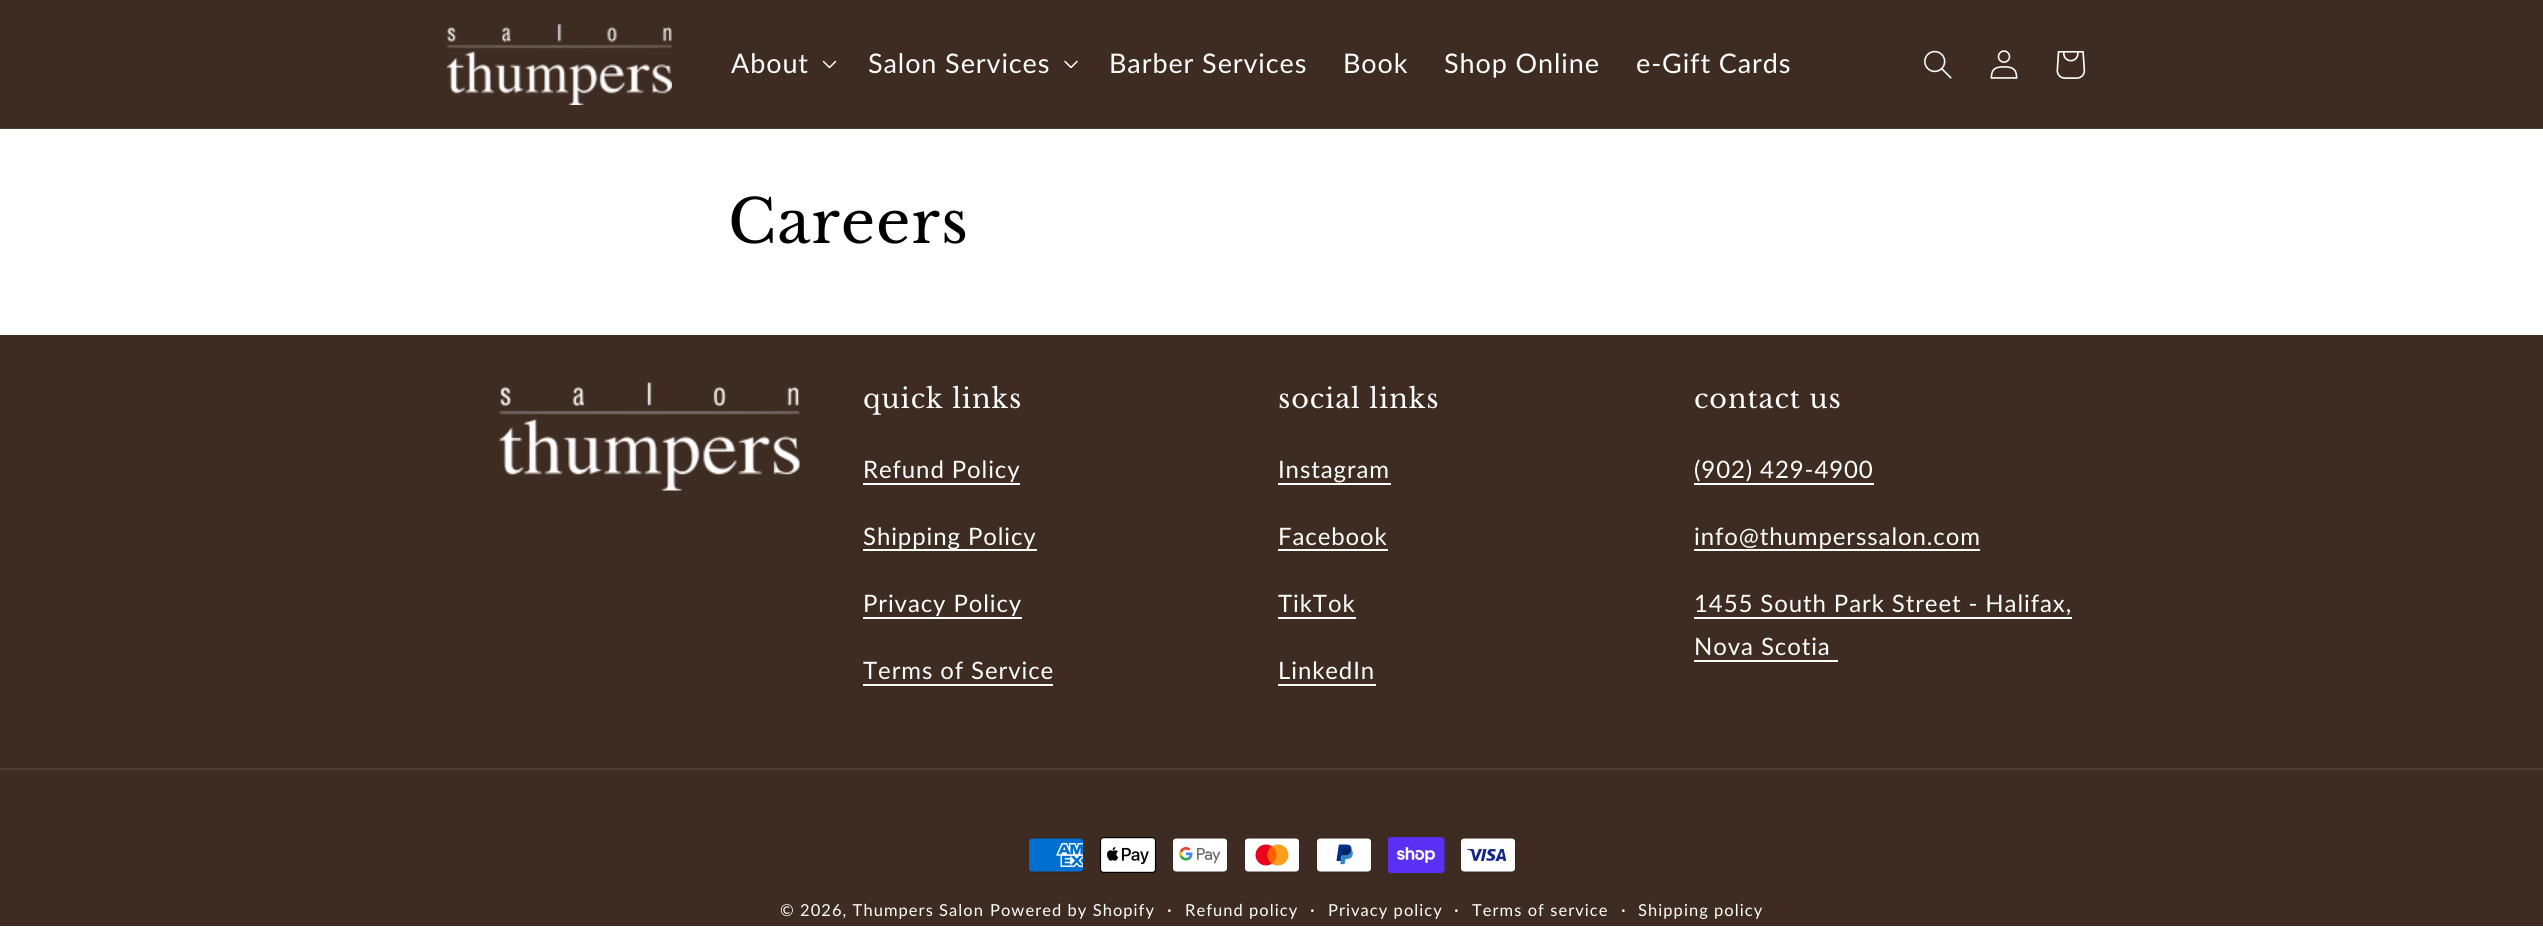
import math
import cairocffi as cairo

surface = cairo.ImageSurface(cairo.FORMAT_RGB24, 2543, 938)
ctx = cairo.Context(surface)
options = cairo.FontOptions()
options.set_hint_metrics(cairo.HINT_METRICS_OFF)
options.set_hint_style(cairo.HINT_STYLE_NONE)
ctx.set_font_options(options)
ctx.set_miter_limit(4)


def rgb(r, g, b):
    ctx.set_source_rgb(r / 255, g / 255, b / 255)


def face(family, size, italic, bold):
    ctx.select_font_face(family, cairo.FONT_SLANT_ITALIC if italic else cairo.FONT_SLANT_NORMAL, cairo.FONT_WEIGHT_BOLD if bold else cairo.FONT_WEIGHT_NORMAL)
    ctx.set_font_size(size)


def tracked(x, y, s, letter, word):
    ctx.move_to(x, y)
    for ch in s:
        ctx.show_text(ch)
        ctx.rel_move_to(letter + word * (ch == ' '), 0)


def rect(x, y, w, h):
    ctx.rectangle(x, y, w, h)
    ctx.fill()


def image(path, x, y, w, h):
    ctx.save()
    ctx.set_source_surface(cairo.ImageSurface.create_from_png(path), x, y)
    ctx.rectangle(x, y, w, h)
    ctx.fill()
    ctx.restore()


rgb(255, 255, 255)
ctx.paint()
rgb(62, 43, 34)
rect(0, 0, 2543, 128)
rgb(77, 60, 52)
rect(0, 128, 2543, 1)
image('image0.png', 447, 23, 225, 82)
face('Lato', 27, 0, 0)
rgb(255, 255, 255)
tracked(731, 73, 'About', 0.9, 0)
image('image1.png', 822, 60, 15, 9)
tracked(868, 73, 'Salon Services', 0.9, 0)
image('image2.png', 1064, 60, 14, 9)
tracked(1109, 73, 'Barber Services', 0.9, 0)
tracked(1343, 73, 'Book', 0.9, 0)
tracked(1444, 73, 'Shop Online', 0.9, 0)
tracked(1636, 73, 'e-Gift Cards', 0.9, 0)
image('image3.png', 1924, 50, 28, 29)
image('image4.png', 1990, 50, 28, 29)
image('image5.png', 2056, 51, 30, 28)
face('Libre Baskerville', 60, 0, 0)
rgb(0, 0, 0)
tracked(728, 243, 'Careers', 0.9, 0)
rgb(62, 43, 34)
rect(0, 335, 2543, 591)
image('image6.png', 499, 382, 301, 109)
face('Libre Baskerville', 27, 0, 0)
rgb(255, 255, 255)
tracked(863, 408, 'quick links', 0.9, 0)
face('Lato', 24, 0, 0)
tracked(863, 478, 'Refund Policy', 0.9, 0)
rect(863, 483, 157, 2)
rect(863, 549, 174, 2)
tracked(863, 545, 'Shipping Policy', 0.9, 0)
tracked(863, 612, 'Privacy Policy', 0.9, 0)
rect(863, 617, 159, 2)
tracked(863, 679, 'Terms of Service', 0.9, 0)
rect(863, 684, 190, 2)
face('Libre Baskerville', 27, 0, 0)
tracked(1278, 408, 'social links', 0.9, 0)
face('Lato', 24, 0, 0)
tracked(1278, 478, 'Instagram', 0.9, 0)
rect(1278, 483, 113, 2)
tracked(1278, 545, 'Facebook', 0.9, 0)
rect(1278, 549, 110, 2)
tracked(1278, 612, 'TikTok', 0.9, 0)
rect(1278, 617, 78, 2)
tracked(1278, 679, 'LinkedIn', 0.9, 0)
rect(1278, 684, 98, 2)
face('Libre Baskerville', 27, 0, 0)
tracked(1694, 408, 'contact us', 0.9, 0)
face('Lato', 24, 0, 0)
tracked(1694, 478, '(902) 429-4900', 0.9, 0)
rect(1694, 483, 180, 2)
rect(1694, 549, 286, 2)
tracked(1694, 545, 'info@thumperssalon.com', 0.9, 0)
tracked(1694, 612, '1455 South Park Street - Halifax,', 0.9, 0)
rect(1694, 617, 378, 2)
tracked(1694, 655, 'Nova Scotia', 0.9, 0)
rect(1694, 660, 144, 2)
rgb(77, 60, 52)
rect(0, 768, 2543, 2)
image('image7.png', 1028, 837, 56, 36)
image('image8.png', 1100, 837, 57, 36)
image('image9.png', 1172, 837, 56, 36)
image('image10.png', 1244, 837, 56, 36)
image('image11.png', 1316, 837, 56, 36)
image('image12.png', 1388, 837, 57, 36)
image('image13.png', 1460, 837, 56, 36)
face('Lato', 16.5, 0, 0)
rgb(255, 255, 255)
tracked(780, 916, '© 2026, Thumpers Salon', 1.05, 0)
tracked(990, 916, 'Powered by Shopify', 1.05, 0)
face('Lato', 18, 0, 0)
tracked(1167, 916, '·', 1.05, 0)
face('Lato', 16.5, 0, 0)
tracked(1185, 916, 'Refund policy', 1.05, 0)
face('Lato', 18, 0, 0)
tracked(1310, 916, '·', 1.05, 0)
face('Lato', 16.5, 0, 0)
tracked(1328, 916, 'Privacy policy', 1.05, 0)
face('Lato', 18, 0, 0)
tracked(1454, 916, '·', 1.05, 0)
face('Lato', 16.5, 0, 0)
tracked(1472, 916, 'Terms of service', 1.05, 0)
face('Lato', 18, 0, 0)
tracked(1621, 916, '·', 1.05, 0)
face('Lato', 16.5, 0, 0)
tracked(1638, 916, 'Shipping policy', 1.05, 0)
surface.write_to_png('render.png')
